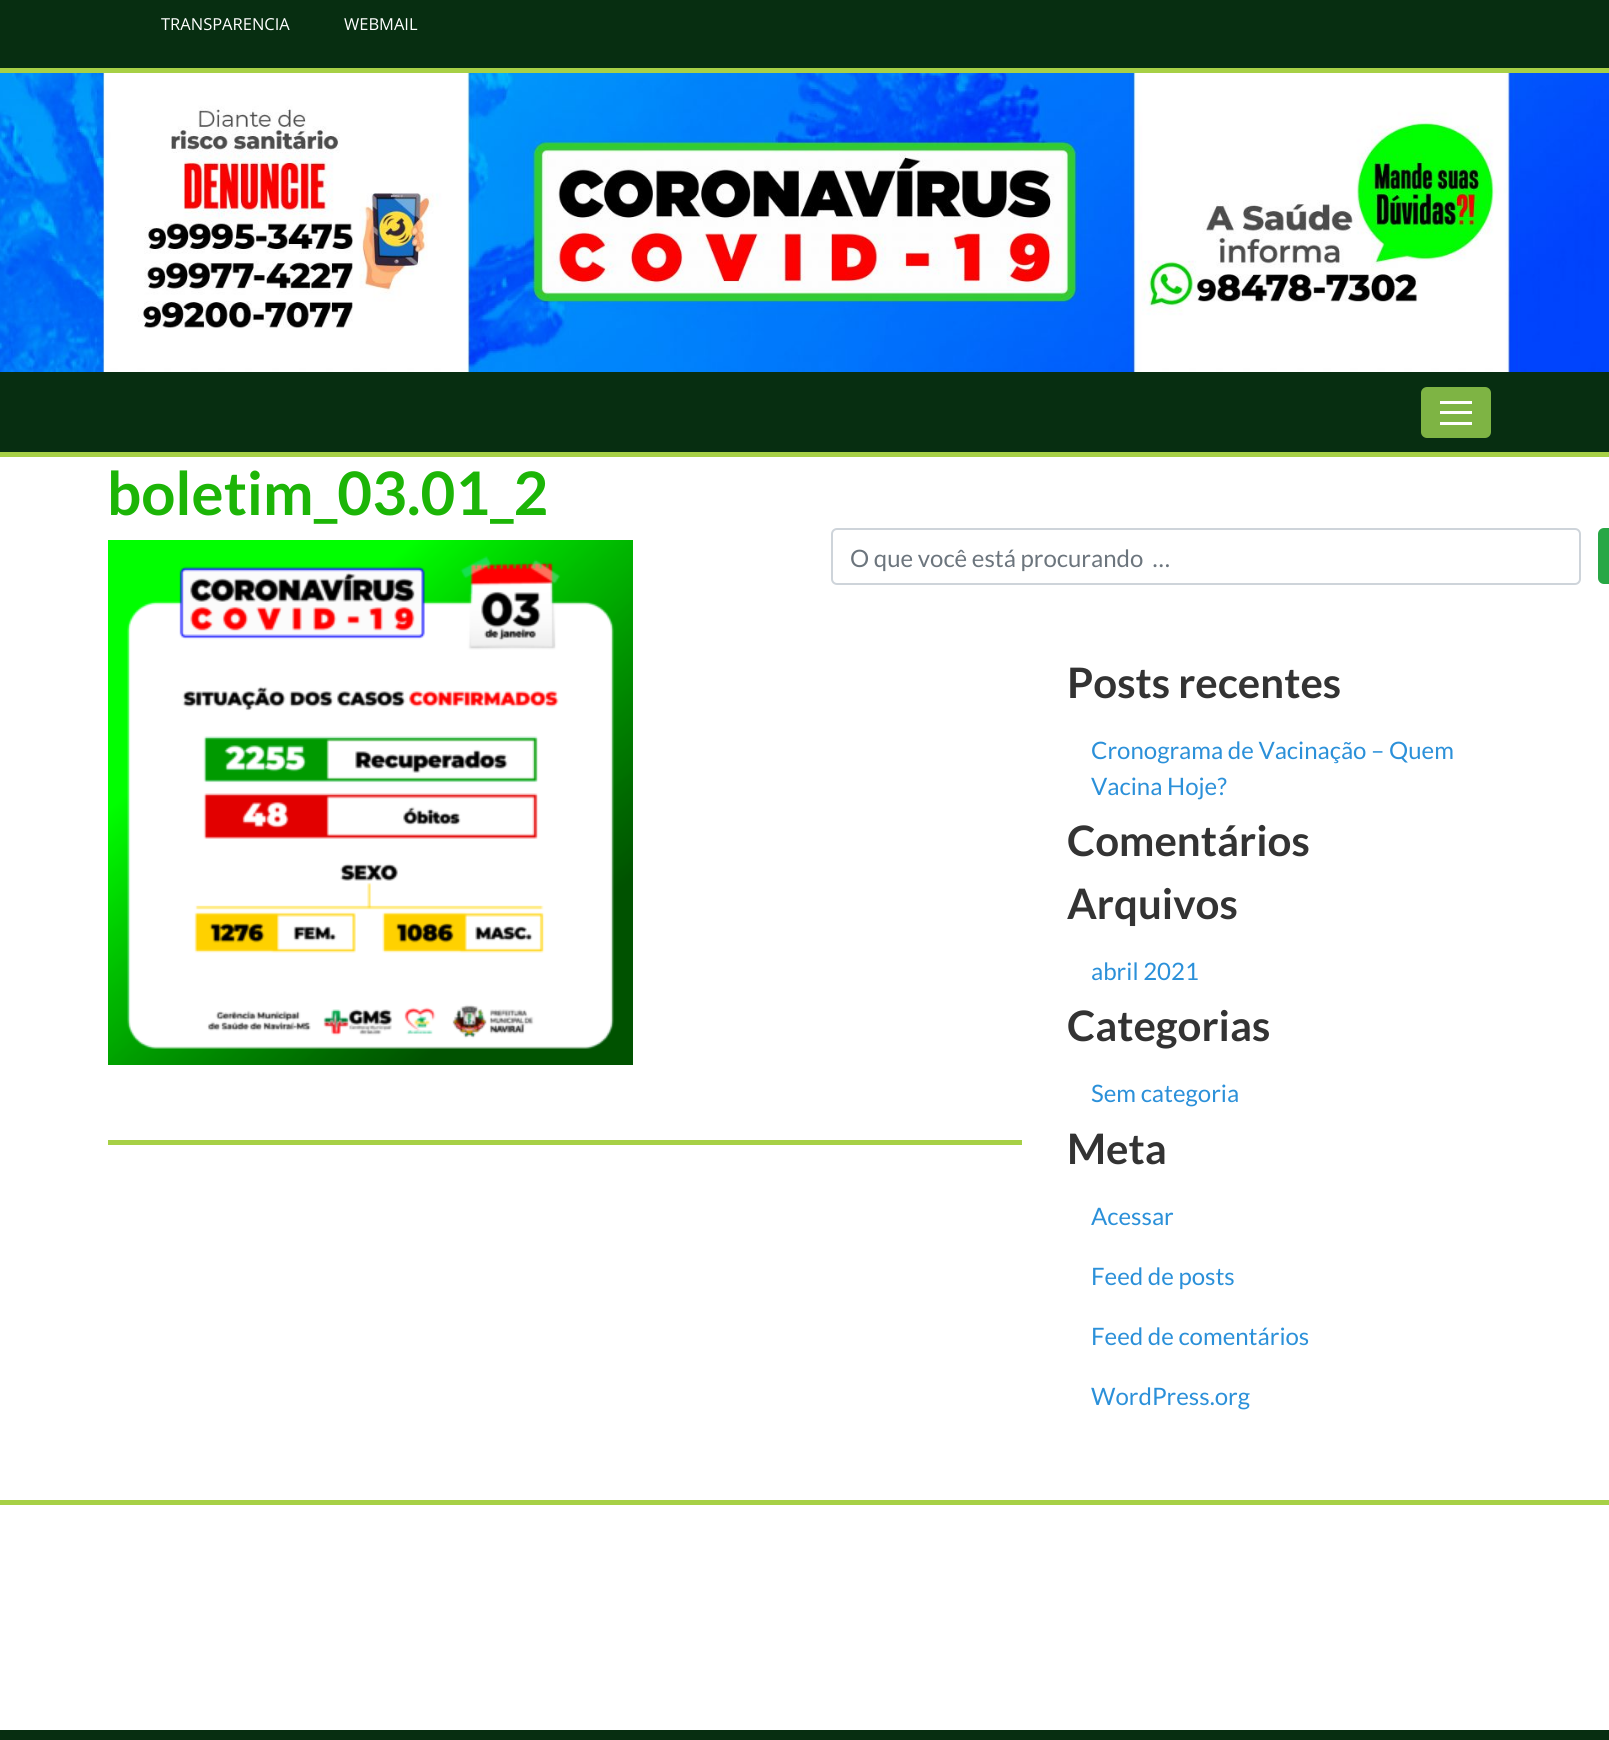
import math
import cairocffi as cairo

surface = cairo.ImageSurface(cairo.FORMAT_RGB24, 1609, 1740)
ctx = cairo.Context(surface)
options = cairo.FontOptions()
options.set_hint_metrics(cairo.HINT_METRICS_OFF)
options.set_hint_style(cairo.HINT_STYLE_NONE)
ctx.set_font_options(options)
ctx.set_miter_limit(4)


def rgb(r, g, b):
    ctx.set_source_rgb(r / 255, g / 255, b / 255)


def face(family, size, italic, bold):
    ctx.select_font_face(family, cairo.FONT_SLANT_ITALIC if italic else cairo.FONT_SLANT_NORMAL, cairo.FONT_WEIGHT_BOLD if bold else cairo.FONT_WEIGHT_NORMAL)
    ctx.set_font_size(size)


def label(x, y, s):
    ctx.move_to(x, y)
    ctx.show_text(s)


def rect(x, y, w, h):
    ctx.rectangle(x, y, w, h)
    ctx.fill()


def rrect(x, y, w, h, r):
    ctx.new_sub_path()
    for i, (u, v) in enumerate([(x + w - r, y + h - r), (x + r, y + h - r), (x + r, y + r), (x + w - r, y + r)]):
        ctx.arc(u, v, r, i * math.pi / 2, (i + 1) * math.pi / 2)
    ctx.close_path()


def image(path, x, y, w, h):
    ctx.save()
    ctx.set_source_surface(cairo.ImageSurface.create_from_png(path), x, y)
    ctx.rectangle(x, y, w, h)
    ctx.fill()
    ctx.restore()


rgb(255, 255, 255)
ctx.paint()
rgb(7, 46, 17)
rect(0, 0, 1609, 452)
rgb(167, 208, 70)
rect(0, 452, 1609, 5)
rect(0, 68, 1609, 5)
face('Open Sans', 16.5, 0, 0)
rgb(255, 255, 255)
label(161, 30, 'TRANSPARENCIA')
label(344, 30, 'WEBMAIL')
image('image0.png', 0, 73, 1609, 299)
rgb(126, 180, 68)
rrect(1421, 387, 70, 51, 6)
ctx.fill()
rgb(255, 255, 255)
rect(1440, 401, 32, 3)
rect(1440, 411, 32, 3)
rect(1440, 422, 32, 3)
face('Lato', 60, 0, 1)
rgb(28, 181, 7)
label(107, 515, 'boletim_03.01_2')
image('image1.png', 108, 540, 525, 525)
rgb(167, 208, 70)
rect(108, 1140, 914, 5)
rrect(832, 529, 748, 55, 5)
rgb(206, 212, 218)
ctx.stroke()
face('Lato', 24, 0, 0)
rgb(108, 117, 125)
label(850, 567, 'O que você está procurando  …')
rgb(40, 167, 69)
rrect(1599, 529, 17, 54, 5)
ctx.fill_preserve()
ctx.stroke()
face('Lato', 42, 0, 1)
rgb(51, 51, 51)
label(1067, 698, 'Posts recentes')
face('Lato', 24, 0, 0)
rgb(43, 144, 217)
label(1091, 759, 'Cronograma de Vacinação – Quem')
label(1091, 795, 'Vacina Hoje?')
face('Lato', 42, 0, 1)
rgb(51, 51, 51)
label(1067, 856, 'Comentários')
label(1067, 919, 'Arquivos')
face('Lato', 24, 0, 0)
rgb(43, 144, 217)
label(1091, 980, 'abril 2021')
face('Lato', 42, 0, 1)
rgb(51, 51, 51)
label(1067, 1041, 'Categorias')
face('Lato', 24, 0, 0)
rgb(43, 144, 217)
label(1091, 1102, 'Sem categoria')
face('Lato', 42, 0, 1)
rgb(51, 51, 51)
label(1067, 1164, 'Meta')
face('Lato', 24, 0, 0)
rgb(43, 144, 217)
label(1091, 1225, 'Acessar')
label(1091, 1285, 'Feed de posts')
label(1091, 1345, 'Feed de comentários')
label(1091, 1405, 'WordPress.org')
rgb(167, 208, 70)
rect(0, 1500, 1609, 5)
rgb(7, 46, 17)
rect(0, 1730, 1609, 10)
surface.write_to_png('render.png')
